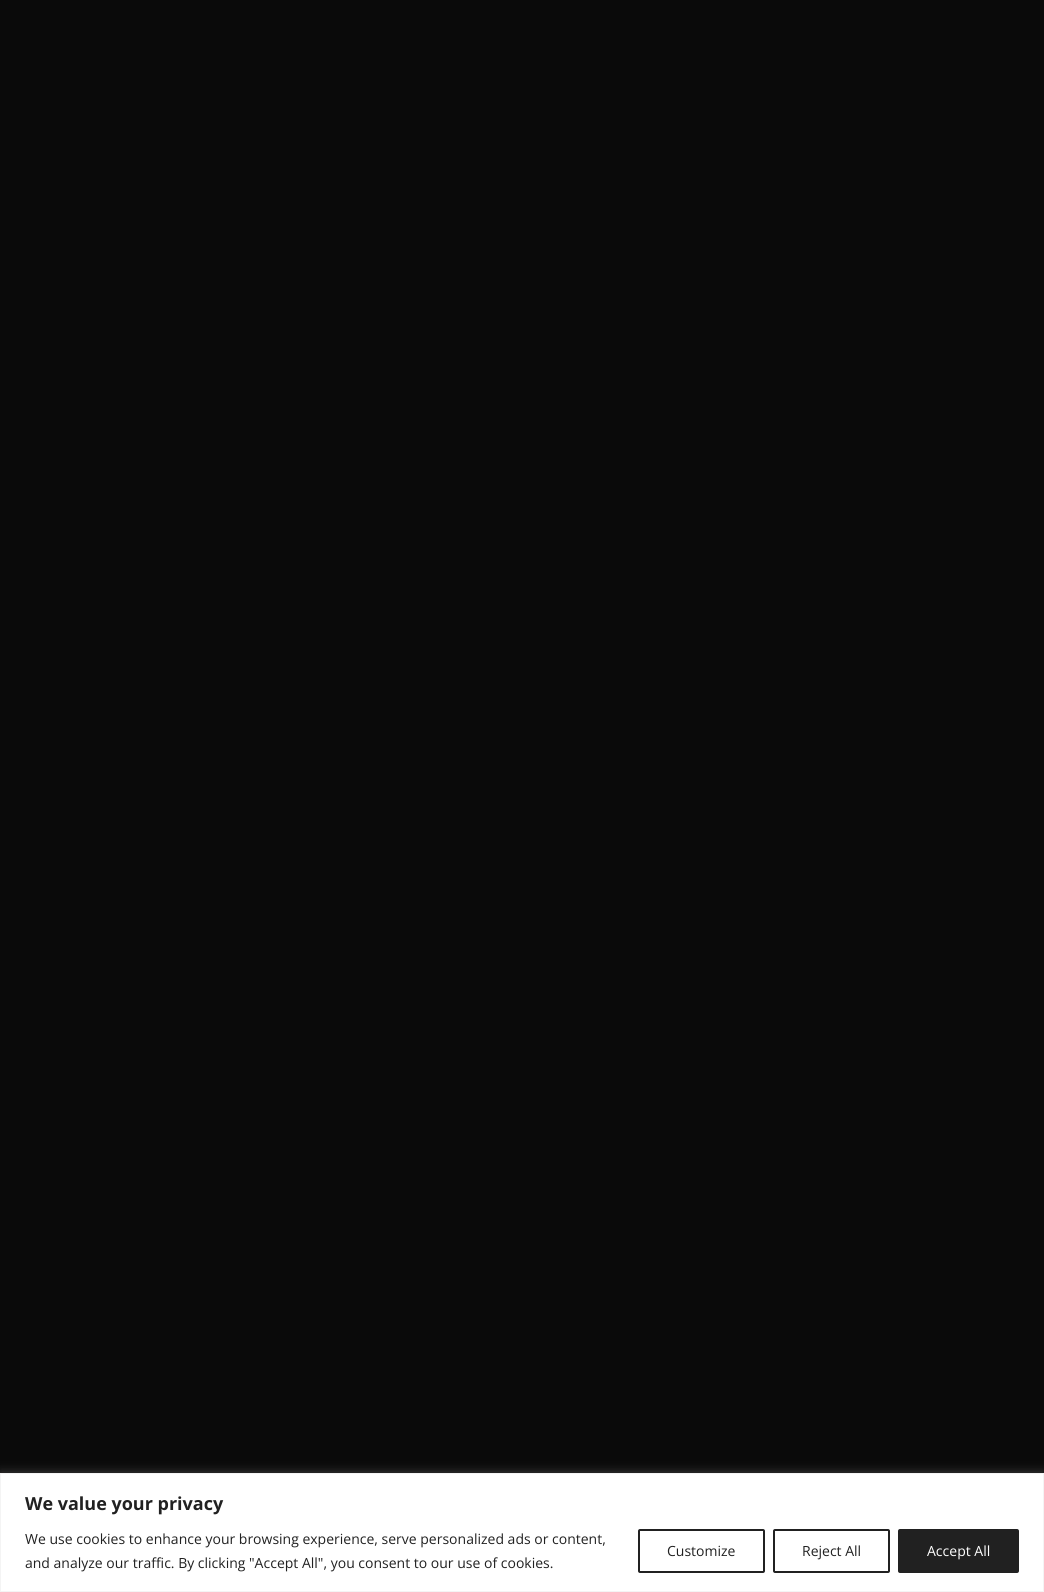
import math
import cairocffi as cairo

surface = cairo.ImageSurface(cairo.FORMAT_RGB24, 1044, 1592)
ctx = cairo.Context(surface)
options = cairo.FontOptions()
options.set_hint_metrics(cairo.HINT_METRICS_OFF)
options.set_hint_style(cairo.HINT_STYLE_NONE)
ctx.set_font_options(options)
ctx.set_miter_limit(4)


def rgb(r, g, b):
    ctx.set_source_rgb(r / 255, g / 255, b / 255)


def face(family, size, italic, bold):
    ctx.select_font_face(family, cairo.FONT_SLANT_ITALIC if italic else cairo.FONT_SLANT_NORMAL, cairo.FONT_WEIGHT_BOLD if bold else cairo.FONT_WEIGHT_NORMAL)
    ctx.set_font_size(size)


def label(x, y, s):
    ctx.move_to(x, y)
    ctx.show_text(s)


def rrect(x, y, w, h, r):
    ctx.new_sub_path()
    for i, (u, v) in enumerate([(x + w - r, y + h - r), (x + r, y + h - r), (x + r, y + r), (x + w - r, y + r)]):
        ctx.arc(u, v, r, i * math.pi / 2, (i + 1) * math.pi / 2)
    ctx.close_path()


def soft_shadow(x, y, w, h, r, blur, alpha):
    ctx.push_group_with_content(cairo.CONTENT_ALPHA)
    ctx.set_operator(cairo.OPERATOR_SOURCE)
    for i in range(15, -16, -2):
        e = blur * i / 6
        if min(w, h) + 2 * e > 0:
            ctx.set_source_rgba(0, 0, 0, alpha * math.erfc((i - 1) / 8.5) / 2)
            rrect(x - e, y - e, w + 2 * e, h + 2 * e, max(0, min(r + e + blur * .6, min(w, h) / 2 + e)))
            ctx.fill()
    ctx.mask(ctx.pop_group())


rgb(10, 10, 10)
ctx.paint()
rgb(172, 171, 171)
soft_shadow(0, 1472, 1044, 119, 0, 5, 0.3)
rgb(255, 255, 255)
ctx.rectangle(0.5, 1473.5, 1043, 118)
ctx.fill_preserve()
rgb(244, 244, 244)
ctx.set_line_width(1)
ctx.stroke()
face('Open Sans', 18, 0, 1)
rgb(33, 33, 33)
label(25, 1510, 'We value your privacy')
face('Open Sans', 14, 0, 0)
label(25, 1544, 'We use cookies to enhance your browsing experience, serve personalized ads or content,')
label(25, 1568, 'and analyze our traffic. By clicking "Accept All", you consent to our use of cookies.')
rrect(639, 1530, 125, 42, 1)
ctx.set_line_width(2)
ctx.stroke()
label(667, 1556, 'Customize')
rrect(774, 1530, 115, 42, 1)
ctx.stroke()
label(802, 1556, 'Reject All')
rrect(899, 1530, 119, 42, 1)
ctx.fill_preserve()
ctx.stroke()
rgb(255, 255, 255)
label(927, 1556, 'Accept All')
surface.write_to_png('render.png')
